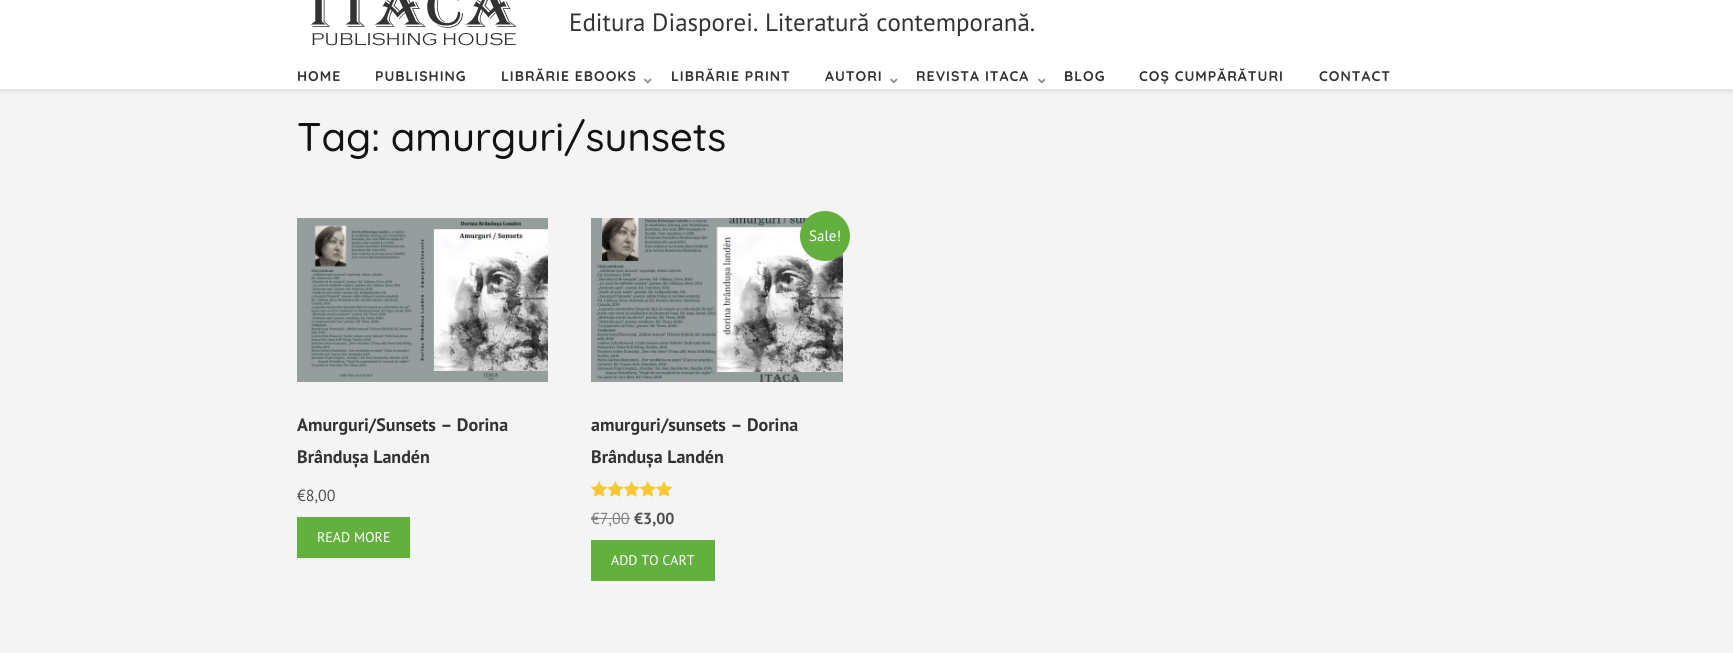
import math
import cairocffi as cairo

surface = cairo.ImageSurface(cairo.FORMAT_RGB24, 1733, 653)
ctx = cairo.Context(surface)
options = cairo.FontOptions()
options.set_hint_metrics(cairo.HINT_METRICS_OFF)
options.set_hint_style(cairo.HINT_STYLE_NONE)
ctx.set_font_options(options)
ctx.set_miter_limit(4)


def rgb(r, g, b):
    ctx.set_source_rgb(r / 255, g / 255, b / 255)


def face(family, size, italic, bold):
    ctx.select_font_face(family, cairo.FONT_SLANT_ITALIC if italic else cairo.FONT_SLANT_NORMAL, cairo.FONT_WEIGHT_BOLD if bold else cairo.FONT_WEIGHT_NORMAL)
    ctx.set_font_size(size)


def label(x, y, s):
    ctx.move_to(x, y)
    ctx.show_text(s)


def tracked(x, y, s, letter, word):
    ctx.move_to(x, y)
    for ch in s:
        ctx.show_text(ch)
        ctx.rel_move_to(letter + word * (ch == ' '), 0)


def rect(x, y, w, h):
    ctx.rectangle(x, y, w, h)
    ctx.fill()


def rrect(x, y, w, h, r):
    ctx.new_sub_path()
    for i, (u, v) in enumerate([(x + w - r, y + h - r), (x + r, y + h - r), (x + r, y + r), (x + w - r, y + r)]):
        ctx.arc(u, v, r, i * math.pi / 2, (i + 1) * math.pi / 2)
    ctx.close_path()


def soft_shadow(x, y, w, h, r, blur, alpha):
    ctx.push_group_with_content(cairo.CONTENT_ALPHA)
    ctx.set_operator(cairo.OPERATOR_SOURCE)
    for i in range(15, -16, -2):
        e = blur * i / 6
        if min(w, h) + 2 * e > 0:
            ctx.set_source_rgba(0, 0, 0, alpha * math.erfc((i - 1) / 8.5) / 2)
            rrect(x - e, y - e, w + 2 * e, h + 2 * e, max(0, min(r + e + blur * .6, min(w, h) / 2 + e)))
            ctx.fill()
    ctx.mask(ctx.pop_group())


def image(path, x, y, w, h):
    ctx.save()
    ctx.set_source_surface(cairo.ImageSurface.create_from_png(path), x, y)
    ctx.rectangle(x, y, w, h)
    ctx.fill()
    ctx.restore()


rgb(244, 244, 244)
ctx.paint()
rgb(0, 0, 0)
soft_shadow(0, -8, 1733, 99, 0, 2.5, 0.1)
rgb(255, 255, 255)
rect(0, 0, 1733, 89)
image('image0.png', 310, 0, 207, 46)
face('PT Sans', 25, 0, 0)
rgb(51, 51, 51)
label(569, 31, 'Editura Diasporei. Literatură contemporană.')
face('Quicksand', 14, 0, 1)
tracked(297, 81, 'HOME', 1, 0)
tracked(375, 81, 'PUBLISHING', 1, 0)
tracked(501, 81, 'LIBRĂRIE EBOOKS', 1, 0)
image('image1.png', 644, 78, 8, 6)
tracked(671, 81, 'LIBRĂRIE PRINT', 1, 0)
tracked(825, 81, 'AUTORI', 1, 0)
image('image1.png', 890, 78, 8, 6)
tracked(916, 81, 'REVISTA ITACA', 1, 0)
image('image2.png', 1038, 78, 7, 6)
tracked(1064, 81, 'BLOG', 1, 0)
tracked(1139, 81, 'COȘ CUMPĂRĂTURI', 1, 0)
tracked(1319, 81, 'CONTACT', 1, 0)
face('Quicksand Medium', 40, 0, 0)
rgb(18, 18, 18)
label(297, 151, 'Tag: amurguri/sunsets')
image('image3.png', 297, 218, 251, 164)
face('PT Sans', 18, 0, 1)
rgb(51, 51, 51)
label(297, 431, 'Amurguri/Sunsets – Dorina')
label(297, 463, 'Brândușa Landén')
face('PT Sans', 16, 0, 0)
rgb(81, 80, 80)
label(297, 501, '€8,00')
rgb(99, 176, 62)
rect(297, 517, 113, 41)
face('PT Sans', 14, 0, 0)
rgb(255, 255, 255)
label(317, 542, 'READ MORE')
image('image4.png', 591, 218, 252, 164)
rgb(99, 176, 62)
ctx.arc(825, 236, 25, 0, 2 * math.pi)
ctx.fill()
face('PT Sans', 15, 0, 0)
rgb(255, 255, 255)
label(809, 241, 'Sale!')
face('PT Sans', 18, 0, 1)
rgb(51, 51, 51)
label(591, 431, 'amurguri/sunsets – Dorina')
label(591, 463, 'Brândușa Landén')
image('image5.png', 591, 481, 81, 16)
image('image6.png', 591, 481, 81, 16)
face('PT Sans', 16, 0, 0)
rgb(130, 129, 129)
label(591, 524, '€7,00')
rect(591, 518, 39, 1)
face('PT Sans', 16, 0, 1)
rgb(81, 80, 80)
label(634, 524, '€3,00')
rgb(99, 176, 62)
rect(591, 540, 124, 41)
face('PT Sans', 14, 0, 0)
rgb(255, 255, 255)
label(611, 565, 'ADD TO CART')
surface.write_to_png('render.png')
